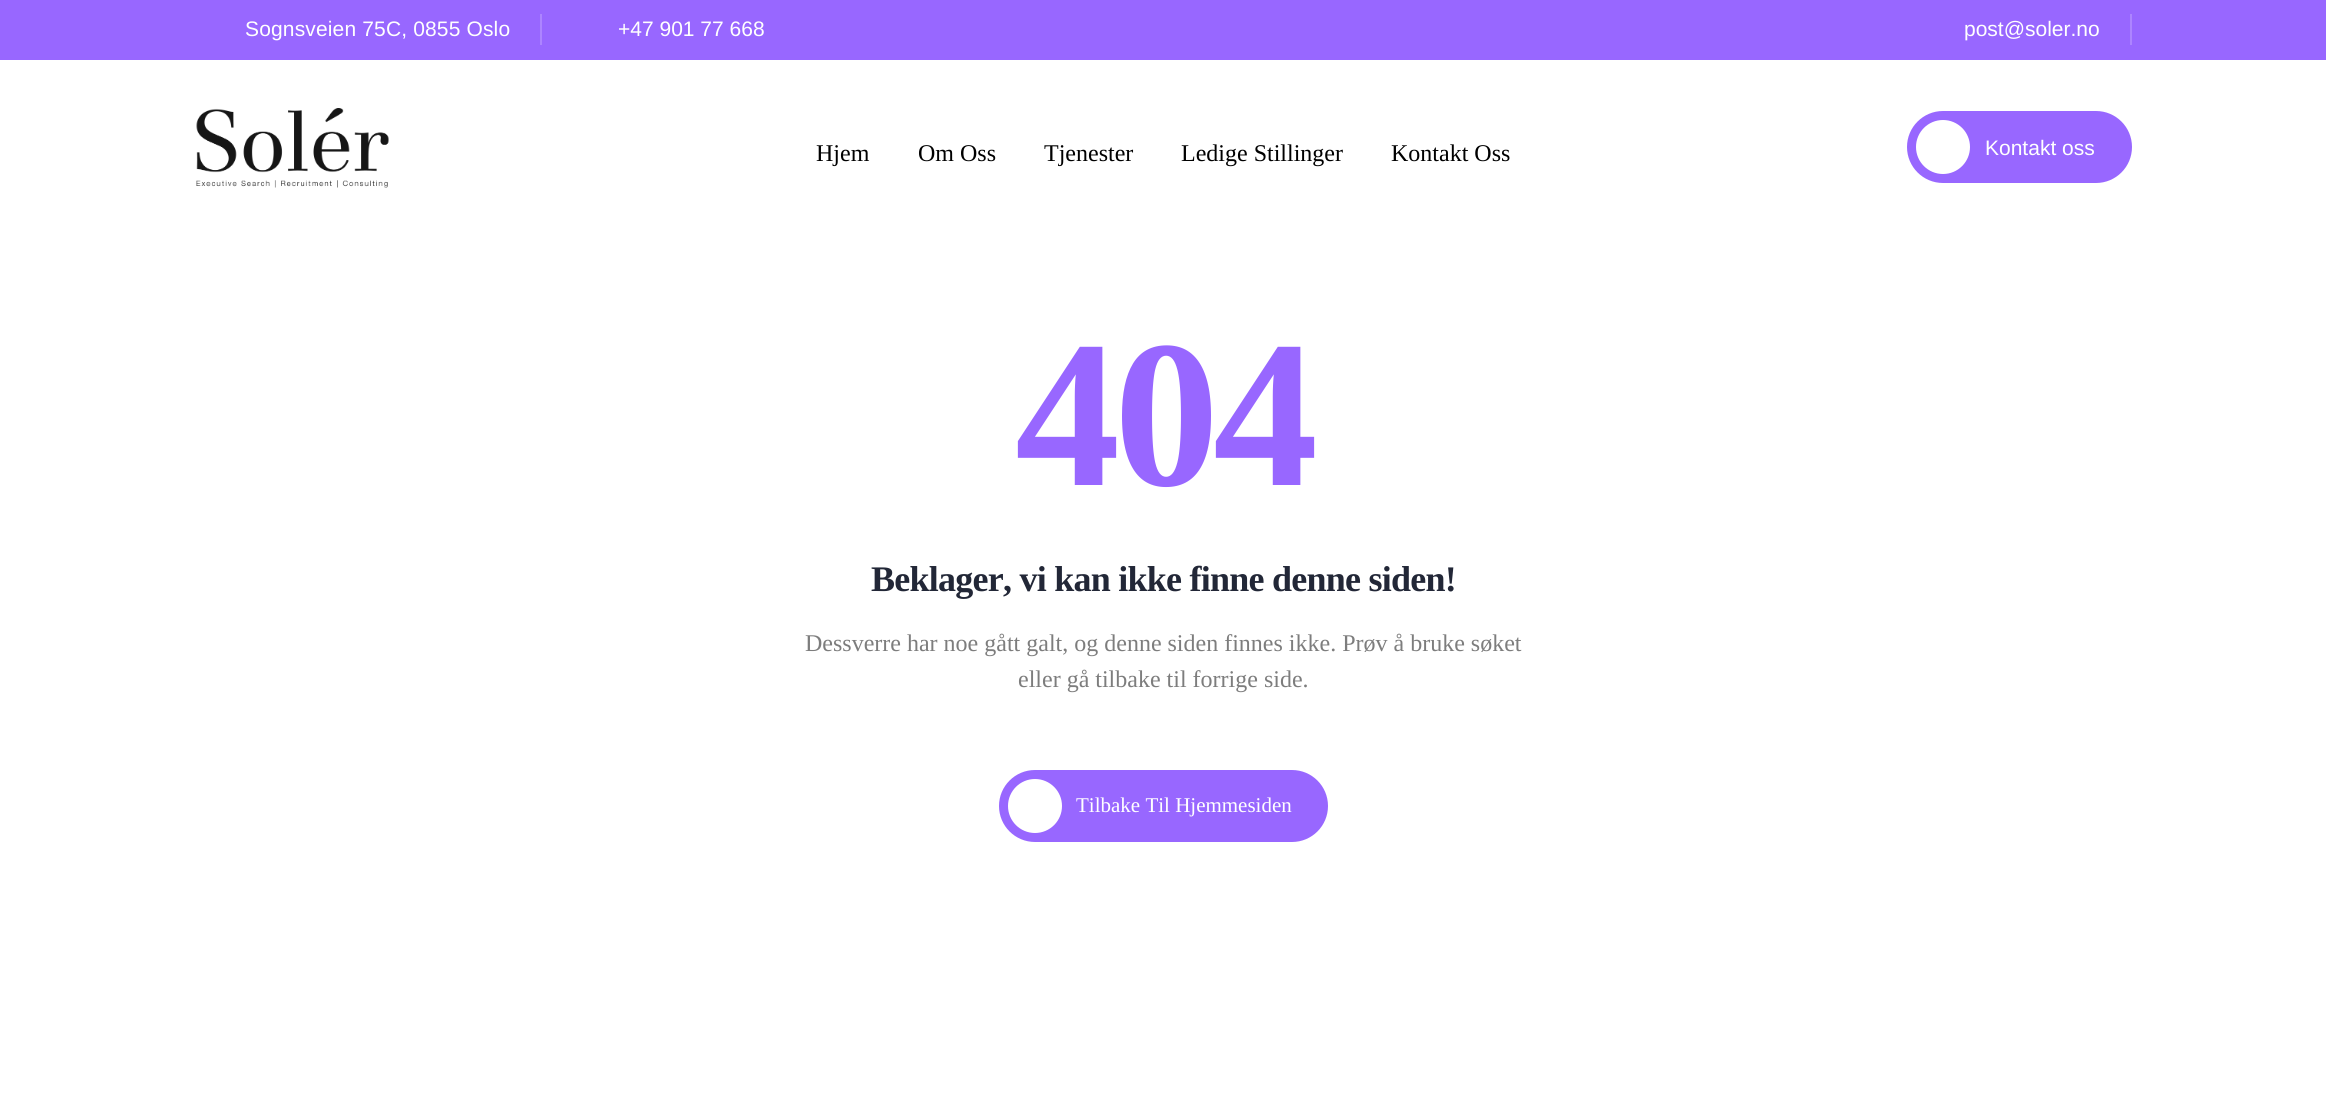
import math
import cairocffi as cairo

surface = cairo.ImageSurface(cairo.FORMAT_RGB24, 2326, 1111)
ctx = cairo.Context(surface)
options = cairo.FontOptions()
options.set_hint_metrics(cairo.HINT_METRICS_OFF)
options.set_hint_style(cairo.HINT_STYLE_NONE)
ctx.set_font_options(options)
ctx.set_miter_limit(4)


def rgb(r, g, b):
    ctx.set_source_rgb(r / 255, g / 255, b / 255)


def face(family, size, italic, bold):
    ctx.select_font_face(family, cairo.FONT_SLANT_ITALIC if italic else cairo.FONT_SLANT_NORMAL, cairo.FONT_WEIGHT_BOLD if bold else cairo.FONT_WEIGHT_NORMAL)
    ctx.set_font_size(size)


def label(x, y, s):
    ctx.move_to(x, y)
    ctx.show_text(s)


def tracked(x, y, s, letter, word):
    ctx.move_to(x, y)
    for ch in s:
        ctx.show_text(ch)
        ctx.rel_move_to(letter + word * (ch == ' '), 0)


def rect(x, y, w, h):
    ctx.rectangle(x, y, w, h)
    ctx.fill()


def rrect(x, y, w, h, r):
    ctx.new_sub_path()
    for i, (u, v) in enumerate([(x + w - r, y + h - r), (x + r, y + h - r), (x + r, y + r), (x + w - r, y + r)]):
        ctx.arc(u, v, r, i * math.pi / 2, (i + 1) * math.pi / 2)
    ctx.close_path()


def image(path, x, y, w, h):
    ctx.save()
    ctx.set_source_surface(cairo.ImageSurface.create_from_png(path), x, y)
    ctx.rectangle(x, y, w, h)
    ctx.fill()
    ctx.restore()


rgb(255, 255, 255)
ctx.paint()
rgb(152, 103, 255)
rect(0, 0, 2326, 60)
face('Liberation Sans', 21, 0, 0)
rgb(255, 255, 255)
tracked(245, 36, 'Sognsveien 75C, 0855 Oslo', 0.15, 0)
rgb(173, 133, 255)
rect(540, 14, 2, 31)
rgb(255, 255, 255)
label(618, 36, '+47 901 77 668')
label(1964, 36, 'post@soler.no')
rgb(173, 133, 255)
rect(2130, 14, 2, 31)
image('image0.png', 196, 108, 193, 80)
face('Liberation Serif', 24, 0, 0)
rgb(0, 0, 0)
label(816, 161, 'Hjem')
label(918, 161, 'Om Oss')
label(1044, 161, 'Tjenester')
label(1181, 161, 'Ledige Stillinger')
label(1391, 161, 'Kontakt Oss')
rgb(152, 103, 255)
rrect(1907, 111, 225, 72, 36)
ctx.fill()
rgb(255, 255, 255)
ctx.arc(1943, 147, 27, 0, 2 * math.pi)
ctx.fill()
face('Liberation Sans', 21, 0, 0)
label(1985, 155, 'Kontakt oss')
face('Liberation Serif', 210, 0, 1)
rgb(152, 103, 255)
tracked(1015, 485, '404', -6, 0)
face('Liberation Serif', 36, 0, 1)
rgb(34, 39, 55)
tracked(871, 591, 'Beklager, vi kan ikke finne denne siden!', -0.75, 0)
face('Liberation Serif', 24, 0, 0)
rgb(125, 125, 125)
label(805, 651, 'Dessverre har noe gått galt, og denne siden finnes ikke. Prøv å bruke søket')
label(1018, 687, 'eller gå tilbake til forrige side.')
rgb(152, 103, 255)
rrect(999, 770, 329, 72, 36)
ctx.fill()
rgb(255, 255, 255)
ctx.arc(1035, 806, 27, 0, 2 * math.pi)
ctx.fill()
face('Liberation Serif', 21, 0, 0)
label(1076, 812, 'Tilbake Til Hjemmesiden')
surface.write_to_png('render.png')
